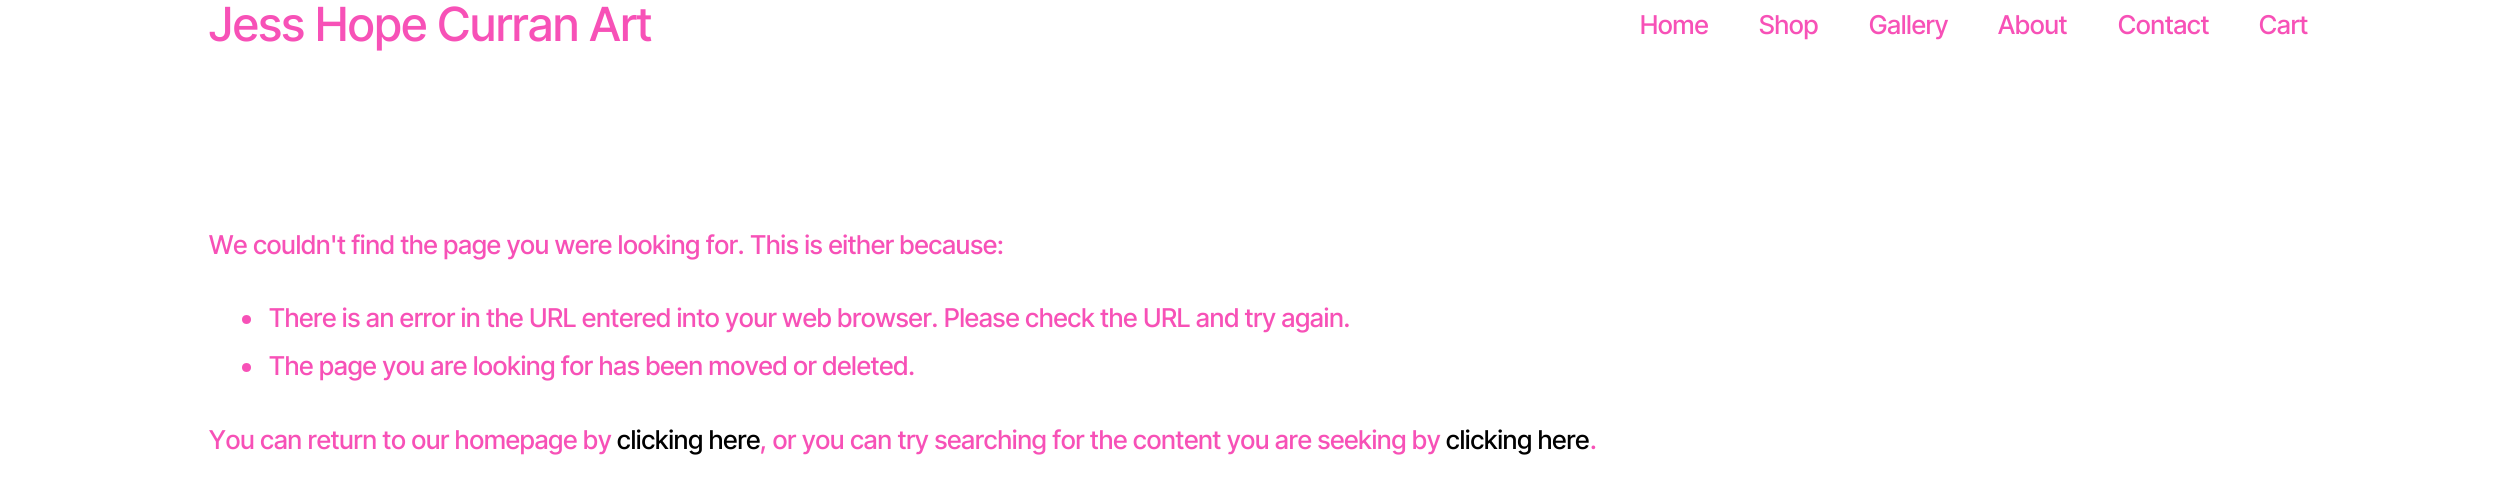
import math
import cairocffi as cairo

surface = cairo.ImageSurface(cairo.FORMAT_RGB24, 2516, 503)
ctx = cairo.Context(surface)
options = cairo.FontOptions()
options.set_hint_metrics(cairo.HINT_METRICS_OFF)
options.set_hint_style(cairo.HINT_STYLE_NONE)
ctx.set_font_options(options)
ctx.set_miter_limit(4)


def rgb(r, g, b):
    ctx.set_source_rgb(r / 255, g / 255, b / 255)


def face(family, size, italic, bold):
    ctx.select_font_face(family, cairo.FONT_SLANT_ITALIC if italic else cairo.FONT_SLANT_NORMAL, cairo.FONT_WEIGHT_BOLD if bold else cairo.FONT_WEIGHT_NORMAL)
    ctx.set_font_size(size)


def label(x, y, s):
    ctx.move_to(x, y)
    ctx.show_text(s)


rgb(255, 255, 255)
ctx.paint()
face('Inter Tight Medium', 47, 0, 0)
rgb(247, 81, 183)
label(209, 41, 'Jess Hope Curran Art')
face('Inter Tight Medium', 25.9, 0, 0)
label(1640, 34, 'Home')
label(1759, 34, 'Shop')
label(1869, 34, 'Gallery')
label(1998, 34, 'About')
label(2118, 34, 'Contact')
label(2259, 34, 'Cart')
label(209, 254, 'We couldn\'t find the page you were looking for. This is either because:')
ctx.new_path()
ctx.arc(246.5, 319.5, 4.5, 0, 2 * math.pi)
ctx.fill()
label(269, 327, 'There is an error in the URL entered into your web browser. Please check the URL and try again.')
ctx.new_path()
ctx.arc(246.5, 367.5, 4.5, 0, 2 * math.pi)
ctx.fill()
label(269, 375, 'The page you are looking for has been moved or deleted.')
label(209, 449, 'You can return to our homepage by')
rgb(0, 0, 0)
label(617, 449, 'clicking here')
rgb(247, 81, 183)
label(760, 449, ', or you can try searching for the')
label(1133, 449, 'content you are seeking by')
rgb(0, 0, 0)
label(1446, 449, 'clicking here')
rgb(247, 81, 183)
label(1590, 449, '.')
surface.write_to_png('render.png')
